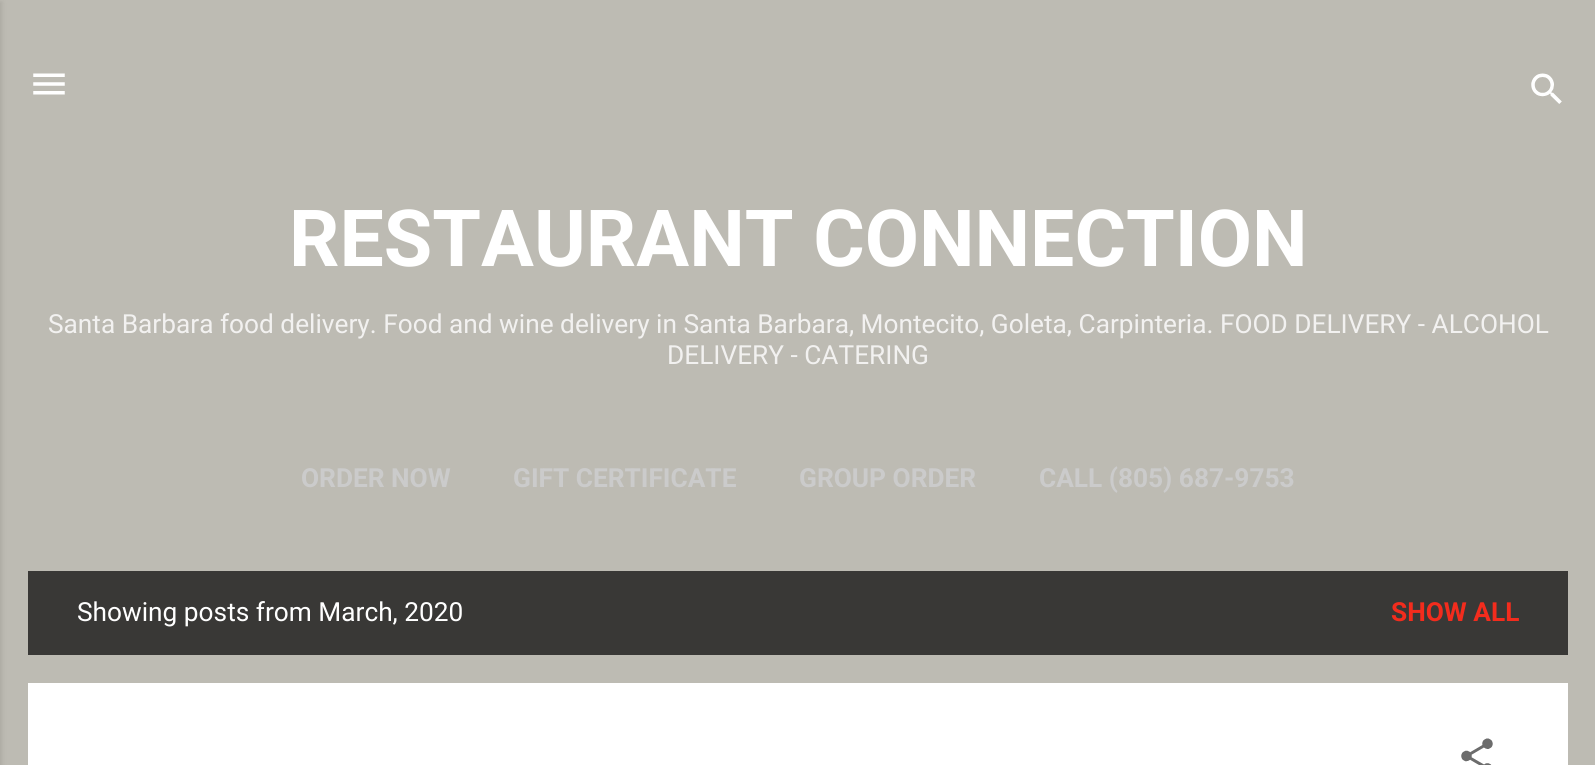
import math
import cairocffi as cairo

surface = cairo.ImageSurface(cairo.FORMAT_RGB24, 1595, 765)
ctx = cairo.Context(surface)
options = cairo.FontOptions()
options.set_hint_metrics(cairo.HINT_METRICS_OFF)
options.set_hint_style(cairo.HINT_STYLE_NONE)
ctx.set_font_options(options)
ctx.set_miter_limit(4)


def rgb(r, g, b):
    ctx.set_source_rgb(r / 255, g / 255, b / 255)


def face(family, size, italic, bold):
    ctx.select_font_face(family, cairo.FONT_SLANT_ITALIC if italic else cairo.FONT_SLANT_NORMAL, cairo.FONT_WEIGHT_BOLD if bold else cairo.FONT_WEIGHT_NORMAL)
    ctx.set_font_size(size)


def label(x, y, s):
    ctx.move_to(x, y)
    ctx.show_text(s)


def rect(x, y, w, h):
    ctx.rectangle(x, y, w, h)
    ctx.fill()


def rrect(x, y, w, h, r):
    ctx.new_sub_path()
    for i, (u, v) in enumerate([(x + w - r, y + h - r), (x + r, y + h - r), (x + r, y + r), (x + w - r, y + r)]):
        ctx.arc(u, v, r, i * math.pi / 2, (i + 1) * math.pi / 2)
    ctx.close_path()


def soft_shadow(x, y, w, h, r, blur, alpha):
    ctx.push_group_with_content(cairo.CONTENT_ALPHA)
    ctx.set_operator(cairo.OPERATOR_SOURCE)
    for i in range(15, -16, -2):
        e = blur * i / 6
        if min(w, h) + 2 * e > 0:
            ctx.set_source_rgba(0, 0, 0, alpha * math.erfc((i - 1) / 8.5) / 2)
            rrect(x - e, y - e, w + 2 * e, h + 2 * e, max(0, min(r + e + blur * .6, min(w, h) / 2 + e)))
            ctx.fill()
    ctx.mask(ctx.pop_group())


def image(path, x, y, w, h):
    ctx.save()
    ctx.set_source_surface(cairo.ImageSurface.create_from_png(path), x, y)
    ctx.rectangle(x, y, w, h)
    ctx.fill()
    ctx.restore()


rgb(189, 187, 179)
ctx.paint()
rgb(0, 0, 0)
soft_shadow(-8, 2, 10, 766, 0, 2.5, 0.1)
image('image0.png', 33, 73, 32, 22)
image('image1.png', 1531, 73, 31, 31)
face('Roboto', 78.75, 0, 1)
rgb(255, 255, 255)
label(289, 266, 'RESTAURANT CONNECTION')
face('Roboto', 26.25, 0, 0)
rgb(242, 241, 240)
label(48, 333, 'Santa Barbara food delivery. Food and wine delivery in Santa Barbara, Montecito, Goleta, Carpinteria. FOOD DELIVERY - ALCOHOL')
label(667, 364, 'DELIVERY - CATERING')
face('Roboto', 26.25, 0, 1)
rgb(203, 203, 203)
label(301, 487, 'ORDER NOW')
label(513, 487, 'GIFT CERTIFICATE')
label(799, 487, 'GROUP ORDER')
label(1039, 487, 'CALL (805) 687-9753')
rgb(57, 56, 54)
rect(28, 571, 1540, 84)
face('Roboto', 26.25, 0, 0)
rgb(255, 255, 255)
label(77, 621, 'Showing posts from March, 2020')
face('Roboto', 26.25, 0, 1)
rgb(243, 44, 29)
label(1391, 621, 'SHOW ALL')
rgb(255, 255, 255)
rect(28, 683, 1540, 82)
image('image2.png', 1461, 738, 32, 27)
surface.write_to_png('render.png')
